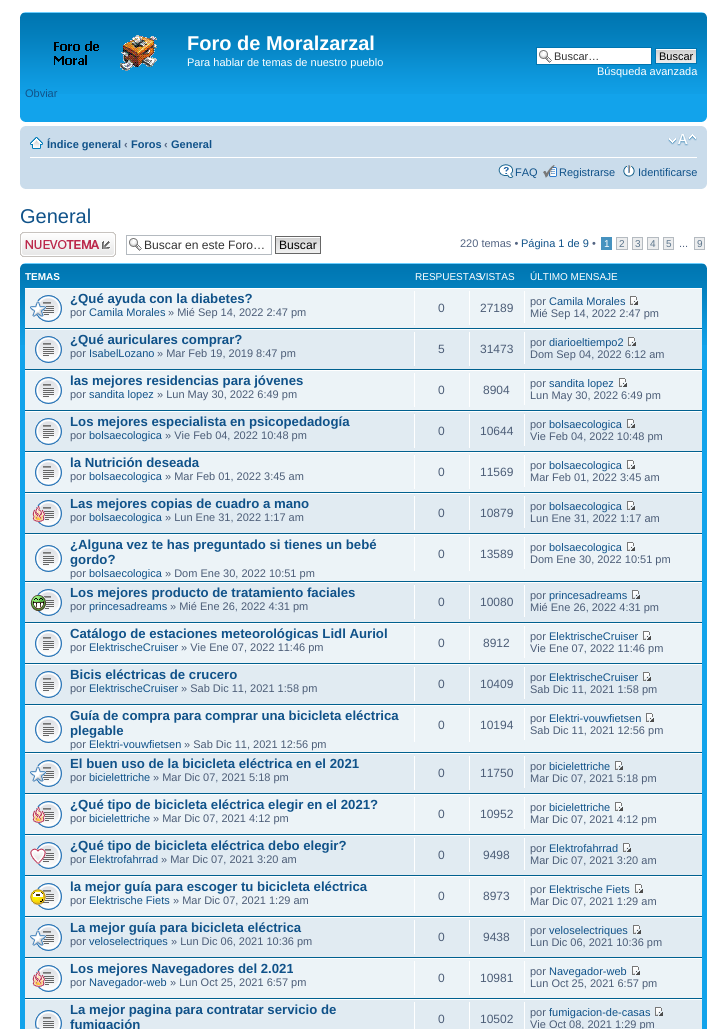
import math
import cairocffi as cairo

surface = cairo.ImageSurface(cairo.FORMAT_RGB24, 727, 1029)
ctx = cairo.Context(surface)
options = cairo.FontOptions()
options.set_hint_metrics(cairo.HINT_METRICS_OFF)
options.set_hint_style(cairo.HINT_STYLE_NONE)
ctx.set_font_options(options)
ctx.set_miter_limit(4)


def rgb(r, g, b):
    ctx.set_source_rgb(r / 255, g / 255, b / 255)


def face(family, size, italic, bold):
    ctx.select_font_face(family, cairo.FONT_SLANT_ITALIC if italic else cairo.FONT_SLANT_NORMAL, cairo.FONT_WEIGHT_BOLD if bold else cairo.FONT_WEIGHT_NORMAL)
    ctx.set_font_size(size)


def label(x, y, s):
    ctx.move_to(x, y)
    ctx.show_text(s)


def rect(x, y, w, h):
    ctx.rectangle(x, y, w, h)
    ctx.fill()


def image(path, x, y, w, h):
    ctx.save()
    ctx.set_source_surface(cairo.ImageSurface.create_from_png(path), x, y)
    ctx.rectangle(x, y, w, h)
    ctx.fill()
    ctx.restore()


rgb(255, 255, 255)
ctx.paint()
rgb(18, 163, 235)
rect(20, 94, 687, 28)
image('image0.png', 20, 12, 687, 82)
image('image1.png', 20, 12, 5, 5)
image('image2.png', 702, 12, 5, 5)
image('image3.png', 54, 35, 103, 36)
face('Liberation Sans', 20, 0, 1)
rgb(255, 255, 255)
label(187, 50, 'Foro de Moralzarzal')
face('Liberation Sans', 11, 0, 0)
label(187, 66, 'Para hablar de temas de nuestro pueblo')
rgb(16, 82, 137)
label(25, 97, 'Obviar')
rgb(255, 255, 255)
rect(537, 48, 114, 16)
image('image4.png', 539, 50, 13, 13)
ctx.rectangle(536.5, 47.5, 115, 17)
rgb(0, 117, 176)
ctx.set_line_width(1)
ctx.stroke()
rgb(51, 51, 51)
label(554, 60, 'Buscar…')
image('image5.png', 656, 49, 40, 14)
ctx.rectangle(655.5, 48.5, 41, 15)
rgb(0, 117, 176)
ctx.stroke()
rgb(0, 0, 0)
label(659, 60, 'Buscar')
rgb(255, 255, 255)
label(597, 75, 'Búsqueda avanzada')
image('image6.png', 20, 117, 5, 5)
image('image7.png', 702, 117, 5, 5)
rgb(202, 220, 235)
rect(20, 126, 687, 63)
image('image8.png', 20, 126, 5, 5)
image('image9.png', 702, 126, 5, 5)
rgb(255, 255, 255)
rect(30, 157, 667, 1)
image('image10.png', 30, 137, 13, 12)
face('Liberation Sans', 11, 0, 1)
rgb(16, 82, 137)
label(47, 148, 'Índice general')
rgb(83, 100, 130)
label(124, 148, '‹')
rgb(16, 82, 137)
label(131, 148, 'Foros')
rgb(83, 100, 130)
label(164, 148, '‹')
rgb(16, 82, 137)
label(171, 148, 'General')
image('image11.png', 668, 134, 29, 12)
image('image12.png', 498, 164, 16, 14)
face('Liberation Sans', 11, 0, 0)
label(515, 176, 'FAQ')
image('image13.png', 543, 165, 14, 13)
label(559, 176, 'Registrarse')
image('image14.png', 623, 165, 12, 12)
label(638, 176, 'Identificarse')
image('image15.png', 20, 184, 5, 5)
image('image16.png', 702, 184, 5, 5)
face('Liberation Sans', 20, 0, 0)
label(20, 223, 'General')
image('image17.png', 20, 232, 96, 25)
image('image4.png', 129, 238, 13, 13)
ctx.rectangle(126.5, 235.5, 145, 19)
rgb(180, 186, 192)
ctx.stroke()
face('Liberation Sans', 12.1, 0, 0)
rgb(51, 51, 51)
label(144, 249, 'Buscar en este Foro…')
image('image18.png', 276, 237, 44, 16)
ctx.rectangle(275.5, 236.5, 45, 17)
rgb(102, 102, 102)
ctx.stroke()
rgb(0, 0, 0)
label(279, 249, 'Buscar')
face('Liberation Sans', 11, 0, 0)
rgb(83, 100, 130)
label(460, 247, '220 temas •')
rgb(16, 82, 137)
label(521, 247, 'Página 1 de 9')
rgb(83, 100, 130)
label(592, 247, '•')
rgb(70, 146, 191)
rect(601, 237, 11, 13)
face('Liberation Sans', 10, 0, 0)
rgb(255, 255, 255)
label(604, 247, '1')
rgb(236, 237, 238)
ctx.rectangle(616.5, 237.5, 11, 12)
ctx.fill_preserve()
rgb(180, 186, 192)
ctx.stroke()
rgb(92, 117, 140)
label(619, 247, '2')
rgb(236, 237, 238)
ctx.rectangle(632.5, 237.5, 10, 12)
ctx.fill_preserve()
rgb(180, 186, 192)
ctx.stroke()
rgb(92, 117, 140)
label(635, 247, '3')
rgb(236, 237, 238)
ctx.rectangle(647.5, 237.5, 11, 12)
ctx.fill_preserve()
rgb(180, 186, 192)
ctx.stroke()
rgb(92, 117, 140)
label(650, 247, '4')
rgb(236, 237, 238)
ctx.rectangle(663.5, 237.5, 10, 12)
ctx.fill_preserve()
rgb(180, 186, 192)
ctx.stroke()
rgb(92, 117, 140)
label(666, 247, '5')
rgb(236, 237, 238)
ctx.rectangle(694.5, 237.5, 10, 12)
ctx.fill_preserve()
rgb(180, 186, 192)
ctx.stroke()
rgb(92, 117, 140)
label(697, 247, '9')
face('Liberation Sans', 11, 0, 0)
rgb(83, 100, 130)
label(679, 247, '...')
rgb(18, 163, 235)
rect(20, 345, 687, 684)
image('image0.png', 20, 263, 687, 82)
image('image1.png', 20, 263, 5, 5)
image('image2.png', 702, 263, 5, 5)
face('Liberation Sans', 10, 0, 1)
rgb(255, 255, 255)
label(25, 280, 'TEMAS')
face('Liberation Sans', 10, 0, 0)
label(415, 280, 'RESPUESTAS')
label(479, 280, 'VISTAS')
label(530, 280, 'ÚLTIMO MENSAJE')
rgb(236, 243, 247)
rect(25, 289, 677, 39)
rgb(255, 255, 255)
rect(25, 288, 677, 1)
rgb(0, 96, 143)
rect(25, 328, 677, 1)
image('image19.png', 37, 295, 25, 27)
image('image20.png', 30, 301, 16, 16)
face('Liberation Sans', 13.2, 0, 1)
rgb(16, 82, 137)
label(70, 303, '¿Qué ayuda con la diabetes?')
face('Liberation Sans', 11, 0, 0)
rgb(76, 93, 119)
label(70, 316, 'por')
rgb(16, 82, 137)
label(89, 316, 'Camila Morales')
rgb(76, 93, 119)
label(168, 316, '» Mié Sep 14, 2022 2:47 pm')
rgb(255, 255, 255)
rect(414, 291, 1, 34)
face('Liberation Sans', 12, 0, 0)
rgb(76, 93, 119)
label(438, 312, '0')
rgb(255, 255, 255)
rect(469, 291, 1, 34)
rgb(76, 93, 119)
label(480, 312, '27189')
rgb(255, 255, 255)
rect(524, 291, 1, 32)
face('Liberation Sans', 11, 0, 0)
rgb(76, 93, 119)
label(530, 305, 'por')
rgb(16, 82, 137)
label(549, 305, 'Camila Morales')
image('image21.png', 630, 296, 8, 9)
rgb(76, 93, 119)
label(530, 317, 'Mié Sep 14, 2022 2:47 pm')
rgb(225, 235, 242)
rect(25, 330, 677, 39)
rgb(255, 255, 255)
rect(25, 329, 677, 1)
rgb(0, 96, 143)
rect(25, 369, 677, 1)
image('image22.png', 35, 336, 27, 27)
face('Liberation Sans', 13.2, 0, 1)
rgb(16, 82, 137)
label(70, 344, '¿Qué auriculares comprar?')
face('Liberation Sans', 11, 0, 0)
rgb(76, 93, 119)
label(70, 357, 'por')
rgb(16, 82, 137)
label(89, 357, 'IsabelLozano')
rgb(76, 93, 119)
label(157, 357, '» Mar Feb 19, 2019 8:47 pm')
rgb(255, 255, 255)
rect(414, 332, 1, 34)
face('Liberation Sans', 12, 0, 0)
rgb(76, 93, 119)
label(438, 353, '5')
rgb(255, 255, 255)
rect(469, 332, 1, 34)
rgb(76, 93, 119)
label(480, 353, '31473')
rgb(255, 255, 255)
rect(524, 332, 1, 32)
face('Liberation Sans', 11, 0, 0)
rgb(76, 93, 119)
label(530, 346, 'por')
rgb(16, 82, 137)
label(549, 346, 'diarioeltiempo2')
image('image23.png', 628, 337, 8, 9)
rgb(76, 93, 119)
label(530, 358, 'Dom Sep 04, 2022 6:12 am')
rgb(236, 243, 247)
rect(25, 371, 677, 39)
rgb(255, 255, 255)
rect(25, 370, 677, 1)
rgb(0, 96, 143)
rect(25, 410, 677, 1)
image('image24.png', 35, 377, 27, 27)
face('Liberation Sans', 13.2, 0, 1)
rgb(16, 82, 137)
label(70, 385, 'las mejores residencias para jóvenes')
face('Liberation Sans', 11, 0, 0)
rgb(76, 93, 119)
label(70, 398, 'por')
rgb(16, 82, 137)
label(89, 398, 'sandita lopez')
rgb(76, 93, 119)
label(157, 398, '» Lun May 30, 2022 6:49 pm')
rgb(255, 255, 255)
rect(414, 373, 1, 34)
face('Liberation Sans', 12, 0, 0)
rgb(76, 93, 119)
label(438, 394, '0')
rgb(255, 255, 255)
rect(469, 373, 1, 34)
rgb(76, 93, 119)
label(483, 394, '8904')
rgb(255, 255, 255)
rect(524, 373, 1, 32)
face('Liberation Sans', 11, 0, 0)
rgb(76, 93, 119)
label(530, 387, 'por')
rgb(16, 82, 137)
label(549, 387, 'sandita lopez')
image('image21.png', 619, 378, 8, 9)
rgb(76, 93, 119)
label(530, 399, 'Lun May 30, 2022 6:49 pm')
rgb(225, 235, 242)
rect(25, 412, 677, 39)
rgb(255, 255, 255)
rect(25, 411, 677, 1)
rgb(0, 96, 143)
rect(25, 451, 677, 1)
image('image22.png', 35, 418, 27, 27)
face('Liberation Sans', 13.2, 0, 1)
rgb(16, 82, 137)
label(70, 426, 'Los mejores especialista en psicopedadogía')
face('Liberation Sans', 11, 0, 0)
rgb(76, 93, 119)
label(70, 439, 'por')
rgb(16, 82, 137)
label(89, 439, 'bolsaecologica')
rgb(76, 93, 119)
label(165, 439, '» Vie Feb 04, 2022 10:48 pm')
rgb(255, 255, 255)
rect(414, 414, 1, 34)
face('Liberation Sans', 12, 0, 0)
rgb(76, 93, 119)
label(438, 435, '0')
rgb(255, 255, 255)
rect(469, 414, 1, 34)
rgb(76, 93, 119)
label(480, 435, '10644')
rgb(255, 255, 255)
rect(524, 414, 1, 32)
face('Liberation Sans', 11, 0, 0)
rgb(76, 93, 119)
label(530, 428, 'por')
rgb(16, 82, 137)
label(549, 428, 'bolsaecologica')
image('image23.png', 627, 419, 8, 9)
rgb(76, 93, 119)
label(530, 440, 'Vie Feb 04, 2022 10:48 pm')
rgb(236, 243, 247)
rect(25, 453, 677, 39)
rgb(255, 255, 255)
rect(25, 452, 677, 1)
rgb(0, 96, 143)
rect(25, 492, 677, 1)
image('image24.png', 35, 459, 27, 27)
face('Liberation Sans', 13.2, 0, 1)
rgb(16, 82, 137)
label(70, 467, 'la Nutrición deseada')
face('Liberation Sans', 11, 0, 0)
rgb(76, 93, 119)
label(70, 480, 'por')
rgb(16, 82, 137)
label(89, 480, 'bolsaecologica')
rgb(76, 93, 119)
label(165, 480, '» Mar Feb 01, 2022 3:45 am')
rgb(255, 255, 255)
rect(414, 455, 1, 34)
face('Liberation Sans', 12, 0, 0)
rgb(76, 93, 119)
label(438, 476, '0')
rgb(255, 255, 255)
rect(469, 455, 1, 34)
rgb(76, 93, 119)
label(480, 476, '11569')
rgb(255, 255, 255)
rect(524, 455, 1, 32)
face('Liberation Sans', 11, 0, 0)
rgb(76, 93, 119)
label(530, 469, 'por')
rgb(16, 82, 137)
label(549, 469, 'bolsaecologica')
image('image21.png', 627, 460, 8, 9)
rgb(76, 93, 119)
label(530, 481, 'Mar Feb 01, 2022 3:45 am')
rgb(225, 235, 242)
rect(25, 494, 677, 39)
rgb(255, 255, 255)
rect(25, 493, 677, 1)
rgb(0, 96, 143)
rect(25, 533, 677, 1)
image('image25.png', 36, 500, 26, 27)
image('image26.png', 32, 506, 13, 16)
face('Liberation Sans', 13.2, 0, 1)
rgb(16, 82, 137)
label(70, 508, 'Las mejores copias de cuadro a mano')
face('Liberation Sans', 11, 0, 0)
rgb(76, 93, 119)
label(70, 521, 'por')
rgb(16, 82, 137)
label(89, 521, 'bolsaecologica')
rgb(76, 93, 119)
label(165, 521, '» Lun Ene 31, 2022 1:17 am')
rgb(255, 255, 255)
rect(414, 496, 1, 34)
face('Liberation Sans', 12, 0, 0)
rgb(76, 93, 119)
label(438, 517, '0')
rgb(255, 255, 255)
rect(469, 496, 1, 34)
rgb(76, 93, 119)
label(480, 517, '10879')
rgb(255, 255, 255)
rect(524, 496, 1, 32)
face('Liberation Sans', 11, 0, 0)
rgb(76, 93, 119)
label(530, 510, 'por')
rgb(16, 82, 137)
label(549, 510, 'bolsaecologica')
image('image23.png', 627, 501, 8, 9)
rgb(76, 93, 119)
label(530, 522, 'Lun Ene 31, 2022 1:17 am')
rgb(236, 243, 247)
rect(25, 535, 677, 46)
rgb(255, 255, 255)
rect(25, 534, 677, 1)
rgb(0, 96, 143)
rect(25, 581, 677, 1)
image('image24.png', 35, 545, 27, 27)
face('Liberation Sans', 13.2, 0, 1)
rgb(16, 82, 137)
label(70, 549, '¿Alguna vez te has preguntado si tienes un bebé')
label(70, 564, 'gordo?')
face('Liberation Sans', 11, 0, 0)
rgb(76, 93, 119)
label(70, 577, 'por')
rgb(16, 82, 137)
label(89, 577, 'bolsaecologica')
rgb(76, 93, 119)
label(165, 577, '» Dom Ene 30, 2022 10:51 pm')
rgb(255, 255, 255)
rect(414, 537, 1, 34)
face('Liberation Sans', 12, 0, 0)
rgb(76, 93, 119)
label(438, 558, '0')
rgb(255, 255, 255)
rect(469, 537, 1, 34)
rgb(76, 93, 119)
label(480, 558, '13589')
rgb(255, 255, 255)
rect(524, 537, 1, 32)
face('Liberation Sans', 11, 0, 0)
rgb(76, 93, 119)
label(530, 551, 'por')
rgb(16, 82, 137)
label(549, 551, 'bolsaecologica')
image('image21.png', 627, 542, 8, 9)
rgb(76, 93, 119)
label(530, 563, 'Dom Ene 30, 2022 10:51 pm')
rgb(225, 235, 242)
rect(25, 583, 677, 39)
rgb(255, 255, 255)
rect(25, 582, 677, 1)
rgb(0, 96, 143)
rect(25, 622, 677, 1)
image('image27.png', 37, 589, 25, 27)
image('image28.png', 30, 595, 16, 16)
face('Liberation Sans', 13.2, 0, 1)
rgb(16, 82, 137)
label(70, 597, 'Los mejores producto de tratamiento faciales')
face('Liberation Sans', 11, 0, 0)
rgb(76, 93, 119)
label(70, 610, 'por')
rgb(16, 82, 137)
label(89, 610, 'princesadreams')
rgb(76, 93, 119)
label(170, 610, '» Mié Ene 26, 2022 4:31 pm')
rgb(255, 255, 255)
rect(414, 585, 1, 34)
face('Liberation Sans', 12, 0, 0)
rgb(76, 93, 119)
label(438, 606, '0')
rgb(255, 255, 255)
rect(469, 585, 1, 34)
rgb(76, 93, 119)
label(480, 606, '10080')
rgb(255, 255, 255)
rect(524, 585, 1, 32)
face('Liberation Sans', 11, 0, 0)
rgb(76, 93, 119)
label(530, 599, 'por')
rgb(16, 82, 137)
label(549, 599, 'princesadreams')
image('image23.png', 632, 590, 8, 9)
rgb(76, 93, 119)
label(530, 611, 'Mié Ene 26, 2022 4:31 pm')
rgb(236, 243, 247)
rect(25, 624, 677, 39)
rgb(255, 255, 255)
rect(25, 623, 677, 1)
rgb(0, 96, 143)
rect(25, 663, 677, 1)
image('image24.png', 35, 630, 27, 27)
face('Liberation Sans', 13.2, 0, 1)
rgb(16, 82, 137)
label(70, 638, 'Catálogo de estaciones meteorológicas Lidl Auriol')
face('Liberation Sans', 11, 0, 0)
rgb(76, 93, 119)
label(70, 651, 'por')
rgb(16, 82, 137)
label(89, 651, 'ElektrischeCruiser')
rgb(76, 93, 119)
label(181, 651, '» Vie Ene 07, 2022 11:46 pm')
rgb(255, 255, 255)
rect(414, 626, 1, 34)
face('Liberation Sans', 12, 0, 0)
rgb(76, 93, 119)
label(438, 647, '0')
rgb(255, 255, 255)
rect(469, 626, 1, 34)
rgb(76, 93, 119)
label(483, 647, '8912')
rgb(255, 255, 255)
rect(524, 626, 1, 32)
face('Liberation Sans', 11, 0, 0)
rgb(76, 93, 119)
label(530, 640, 'por')
rgb(16, 82, 137)
label(549, 640, 'ElektrischeCruiser')
image('image21.png', 643, 631, 8, 9)
rgb(76, 93, 119)
label(530, 652, 'Vie Ene 07, 2022 11:46 pm')
rgb(225, 235, 242)
rect(25, 665, 677, 39)
rgb(255, 255, 255)
rect(25, 664, 677, 1)
rgb(0, 96, 143)
rect(25, 704, 677, 1)
image('image22.png', 35, 671, 27, 27)
face('Liberation Sans', 13.2, 0, 1)
rgb(16, 82, 137)
label(70, 679, 'Bicis eléctricas de crucero')
face('Liberation Sans', 11, 0, 0)
rgb(76, 93, 119)
label(70, 692, 'por')
rgb(16, 82, 137)
label(89, 692, 'ElektrischeCruiser')
rgb(76, 93, 119)
label(181, 692, '» Sab Dic 11, 2021 1:58 pm')
rgb(255, 255, 255)
rect(414, 667, 1, 34)
face('Liberation Sans', 12, 0, 0)
rgb(76, 93, 119)
label(438, 688, '0')
rgb(255, 255, 255)
rect(469, 667, 1, 34)
rgb(76, 93, 119)
label(480, 688, '10409')
rgb(255, 255, 255)
rect(524, 667, 1, 32)
face('Liberation Sans', 11, 0, 0)
rgb(76, 93, 119)
label(530, 681, 'por')
rgb(16, 82, 137)
label(549, 681, 'ElektrischeCruiser')
image('image23.png', 643, 672, 8, 9)
rgb(76, 93, 119)
label(530, 693, 'Sab Dic 11, 2021 1:58 pm')
rgb(236, 243, 247)
rect(25, 706, 677, 46)
rgb(255, 255, 255)
rect(25, 705, 677, 1)
rgb(0, 96, 143)
rect(25, 752, 677, 1)
image('image24.png', 35, 716, 27, 27)
face('Liberation Sans', 13.2, 0, 1)
rgb(16, 82, 137)
label(70, 720, 'Guía de compra para comprar una bicicleta eléctrica')
label(70, 735, 'plegable')
face('Liberation Sans', 11, 0, 0)
rgb(76, 93, 119)
label(70, 748, 'por')
rgb(16, 82, 137)
label(89, 748, 'Elektri-vouwfietsen')
rgb(76, 93, 119)
label(184, 748, '» Sab Dic 11, 2021 12:56 pm')
rgb(255, 255, 255)
rect(414, 708, 1, 34)
face('Liberation Sans', 12, 0, 0)
rgb(76, 93, 119)
label(438, 729, '0')
rgb(255, 255, 255)
rect(469, 708, 1, 34)
rgb(76, 93, 119)
label(480, 729, '10194')
rgb(255, 255, 255)
rect(524, 708, 1, 32)
face('Liberation Sans', 11, 0, 0)
rgb(76, 93, 119)
label(530, 722, 'por')
rgb(16, 82, 137)
label(549, 722, 'Elektri-vouwfietsen')
image('image21.png', 646, 713, 8, 9)
rgb(76, 93, 119)
label(530, 734, 'Sab Dic 11, 2021 12:56 pm')
rgb(225, 235, 242)
rect(25, 754, 677, 39)
rgb(255, 255, 255)
rect(25, 753, 677, 1)
rgb(0, 96, 143)
rect(25, 793, 677, 1)
image('image27.png', 37, 760, 25, 27)
image('image29.png', 30, 766, 16, 16)
face('Liberation Sans', 13.2, 0, 1)
rgb(16, 82, 137)
label(70, 768, 'El buen uso de la bicicleta eléctrica en el 2021')
face('Liberation Sans', 11, 0, 0)
rgb(76, 93, 119)
label(70, 781, 'por')
rgb(16, 82, 137)
label(89, 781, 'bicielettriche')
rgb(76, 93, 119)
label(153, 781, '» Mar Dic 07, 2021 5:18 pm')
rgb(255, 255, 255)
rect(414, 756, 1, 34)
face('Liberation Sans', 12, 0, 0)
rgb(76, 93, 119)
label(438, 777, '0')
rgb(255, 255, 255)
rect(469, 756, 1, 34)
rgb(76, 93, 119)
label(480, 777, '11750')
rgb(255, 255, 255)
rect(524, 756, 1, 32)
face('Liberation Sans', 11, 0, 0)
rgb(76, 93, 119)
label(530, 770, 'por')
rgb(16, 82, 137)
label(549, 770, 'bicielettriche')
image('image23.png', 615, 761, 8, 9)
rgb(76, 93, 119)
label(530, 782, 'Mar Dic 07, 2021 5:18 pm')
rgb(236, 243, 247)
rect(25, 795, 677, 39)
rgb(255, 255, 255)
rect(25, 794, 677, 1)
rgb(0, 96, 143)
rect(25, 834, 677, 1)
image('image30.png', 36, 801, 26, 27)
image('image31.png', 32, 807, 13, 16)
face('Liberation Sans', 13.2, 0, 1)
rgb(16, 82, 137)
label(70, 809, '¿Qué tipo de bicicleta eléctrica elegir en el 2021?')
face('Liberation Sans', 11, 0, 0)
rgb(76, 93, 119)
label(70, 822, 'por')
rgb(16, 82, 137)
label(89, 822, 'bicielettriche')
rgb(76, 93, 119)
label(153, 822, '» Mar Dic 07, 2021 4:12 pm')
rgb(255, 255, 255)
rect(414, 797, 1, 34)
face('Liberation Sans', 12, 0, 0)
rgb(76, 93, 119)
label(438, 818, '0')
rgb(255, 255, 255)
rect(469, 797, 1, 34)
rgb(76, 93, 119)
label(480, 818, '10952')
rgb(255, 255, 255)
rect(524, 797, 1, 32)
face('Liberation Sans', 11, 0, 0)
rgb(76, 93, 119)
label(530, 811, 'por')
rgb(16, 82, 137)
label(549, 811, 'bicielettriche')
image('image21.png', 615, 802, 8, 9)
rgb(76, 93, 119)
label(530, 823, 'Mar Dic 07, 2021 4:12 pm')
rgb(225, 235, 242)
rect(25, 836, 677, 39)
rgb(255, 255, 255)
rect(25, 835, 677, 1)
rgb(0, 96, 143)
rect(25, 875, 677, 1)
image('image27.png', 37, 842, 25, 27)
image('image32.png', 30, 848, 16, 16)
face('Liberation Sans', 13.2, 0, 1)
rgb(16, 82, 137)
label(70, 850, '¿Qué tipo de bicicleta eléctrica debo elegir?')
face('Liberation Sans', 11, 0, 0)
rgb(76, 93, 119)
label(70, 863, 'por')
rgb(16, 82, 137)
label(89, 863, 'Elektrofahrrad')
rgb(76, 93, 119)
label(161, 863, '» Mar Dic 07, 2021 3:20 am')
rgb(255, 255, 255)
rect(414, 838, 1, 34)
face('Liberation Sans', 12, 0, 0)
rgb(76, 93, 119)
label(438, 859, '0')
rgb(255, 255, 255)
rect(469, 838, 1, 34)
rgb(76, 93, 119)
label(483, 859, '9498')
rgb(255, 255, 255)
rect(524, 838, 1, 32)
face('Liberation Sans', 11, 0, 0)
rgb(76, 93, 119)
label(530, 852, 'por')
rgb(16, 82, 137)
label(549, 852, 'Elektrofahrrad')
image('image23.png', 623, 843, 8, 9)
rgb(76, 93, 119)
label(530, 864, 'Mar Dic 07, 2021 3:20 am')
rgb(236, 243, 247)
rect(25, 877, 677, 39)
rgb(255, 255, 255)
rect(25, 876, 677, 1)
rgb(0, 96, 143)
rect(25, 916, 677, 1)
image('image19.png', 37, 883, 25, 27)
image('image33.png', 30, 889, 16, 16)
face('Liberation Sans', 13.2, 0, 1)
rgb(16, 82, 137)
label(70, 891, 'la mejor guía para escoger tu bicicleta eléctrica')
face('Liberation Sans', 11, 0, 0)
rgb(76, 93, 119)
label(70, 904, 'por')
rgb(16, 82, 137)
label(89, 904, 'Elektrische Fiets')
rgb(76, 93, 119)
label(173, 904, '» Mar Dic 07, 2021 1:29 am')
rgb(255, 255, 255)
rect(414, 879, 1, 34)
face('Liberation Sans', 12, 0, 0)
rgb(76, 93, 119)
label(438, 900, '0')
rgb(255, 255, 255)
rect(469, 879, 1, 34)
rgb(76, 93, 119)
label(483, 900, '8973')
rgb(255, 255, 255)
rect(524, 879, 1, 32)
face('Liberation Sans', 11, 0, 0)
rgb(76, 93, 119)
label(530, 893, 'por')
rgb(16, 82, 137)
label(549, 893, 'Elektrische Fiets')
image('image21.png', 635, 884, 8, 9)
rgb(76, 93, 119)
label(530, 905, 'Mar Dic 07, 2021 1:29 am')
rgb(225, 235, 242)
rect(25, 918, 677, 39)
rgb(255, 255, 255)
rect(25, 917, 677, 1)
rgb(0, 96, 143)
rect(25, 957, 677, 1)
image('image27.png', 37, 924, 25, 27)
image('image29.png', 30, 930, 16, 16)
face('Liberation Sans', 13.2, 0, 1)
rgb(16, 82, 137)
label(70, 932, 'La mejor guía para bicicleta eléctrica')
face('Liberation Sans', 11, 0, 0)
rgb(76, 93, 119)
label(70, 945, 'por')
rgb(16, 82, 137)
label(89, 945, 'veloselectriques')
rgb(76, 93, 119)
label(171, 945, '» Lun Dic 06, 2021 10:36 pm')
rgb(255, 255, 255)
rect(414, 920, 1, 34)
face('Liberation Sans', 12, 0, 0)
rgb(76, 93, 119)
label(438, 941, '0')
rgb(255, 255, 255)
rect(469, 920, 1, 34)
rgb(76, 93, 119)
label(483, 941, '9438')
rgb(255, 255, 255)
rect(524, 920, 1, 32)
face('Liberation Sans', 11, 0, 0)
rgb(76, 93, 119)
label(530, 934, 'por')
rgb(16, 82, 137)
label(549, 934, 'veloselectriques')
image('image23.png', 633, 925, 8, 9)
rgb(76, 93, 119)
label(530, 946, 'Lun Dic 06, 2021 10:36 pm')
rgb(236, 243, 247)
rect(25, 959, 677, 39)
rgb(255, 255, 255)
rect(25, 958, 677, 1)
rgb(0, 96, 143)
rect(25, 998, 677, 1)
image('image30.png', 36, 965, 26, 27)
image('image31.png', 32, 971, 13, 16)
face('Liberation Sans', 13.2, 0, 1)
rgb(16, 82, 137)
label(70, 973, 'Los mejores Navegadores del 2.021')
face('Liberation Sans', 11, 0, 0)
rgb(76, 93, 119)
label(70, 986, 'por')
rgb(16, 82, 137)
label(89, 986, 'Navegador-web')
rgb(76, 93, 119)
label(170, 986, '» Lun Oct 25, 2021 6:57 pm')
rgb(255, 255, 255)
rect(414, 961, 1, 34)
face('Liberation Sans', 12, 0, 0)
rgb(76, 93, 119)
label(438, 982, '0')
rgb(255, 255, 255)
rect(469, 961, 1, 34)
rgb(76, 93, 119)
label(480, 982, '10981')
rgb(255, 255, 255)
rect(524, 961, 1, 32)
face('Liberation Sans', 11, 0, 0)
rgb(76, 93, 119)
label(530, 975, 'por')
rgb(16, 82, 137)
label(549, 975, 'Navegador-web')
image('image21.png', 632, 966, 8, 9)
rgb(76, 93, 119)
label(530, 987, 'Lun Oct 25, 2021 6:57 pm')
rgb(225, 235, 242)
rect(25, 1000, 677, 29)
rgb(255, 255, 255)
rect(25, 999, 677, 1)
image('image34.png', 35, 1010, 27, 19)
image('image35.png', 36, 1027, 4, 2)
face('Liberation Sans', 13.2, 0, 1)
rgb(16, 82, 137)
label(70, 1014, 'La mejor pagina para contratar servicio de')
label(70, 1029, 'fumigación')
rgb(255, 255, 255)
rect(414, 1002, 1, 27)
face('Liberation Sans', 12, 0, 0)
rgb(76, 93, 119)
label(438, 1023, '0')
rgb(255, 255, 255)
rect(469, 1002, 1, 27)
rgb(76, 93, 119)
label(480, 1023, '10502')
rgb(255, 255, 255)
rect(524, 1002, 1, 27)
face('Liberation Sans', 11, 0, 0)
rgb(76, 93, 119)
label(530, 1016, 'por')
rgb(16, 82, 137)
label(549, 1016, 'fumigacion-de-casas')
image('image23.png', 655, 1007, 8, 9)
rgb(76, 93, 119)
label(530, 1028, 'Vie Oct 08, 2021 1:29 pm')
surface.write_to_png('render.png')
